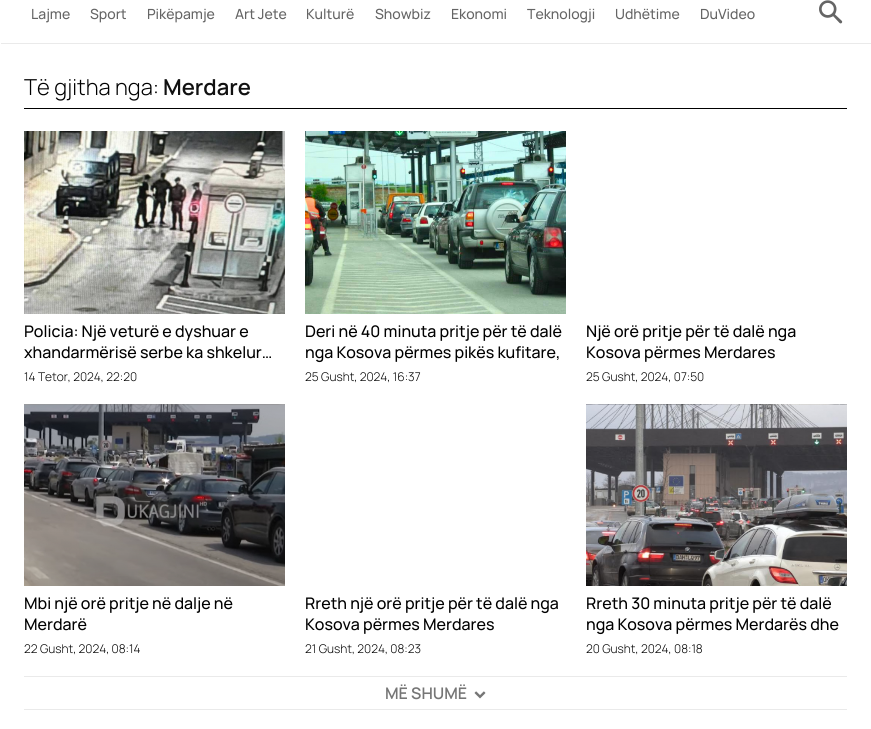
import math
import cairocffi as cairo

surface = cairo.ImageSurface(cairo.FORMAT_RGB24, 871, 729)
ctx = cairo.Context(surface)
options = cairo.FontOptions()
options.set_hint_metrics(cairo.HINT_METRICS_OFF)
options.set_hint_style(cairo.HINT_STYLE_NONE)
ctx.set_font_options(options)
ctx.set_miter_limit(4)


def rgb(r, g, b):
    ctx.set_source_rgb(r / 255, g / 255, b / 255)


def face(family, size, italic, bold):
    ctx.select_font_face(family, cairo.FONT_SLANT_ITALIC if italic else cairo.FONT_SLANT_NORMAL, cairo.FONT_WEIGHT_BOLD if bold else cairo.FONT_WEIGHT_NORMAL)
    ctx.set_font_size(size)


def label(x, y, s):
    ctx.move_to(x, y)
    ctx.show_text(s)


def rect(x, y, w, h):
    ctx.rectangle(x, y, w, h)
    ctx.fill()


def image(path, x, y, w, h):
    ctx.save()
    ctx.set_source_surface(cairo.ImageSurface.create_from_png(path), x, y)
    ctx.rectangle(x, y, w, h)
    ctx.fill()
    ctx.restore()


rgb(255, 255, 255)
ctx.paint()
face('Manrope Medium', 14, 0, 0)
rgb(101, 101, 101)
label(31, 19, 'Lajme')
label(90, 19, 'Sport')
label(147, 19, 'Pikëpamje')
label(235, 19, 'Art Jete')
label(306, 19, 'Kulturë')
label(375, 19, 'Showbiz')
label(451, 19, 'Ekonomi')
label(527, 19, 'Teknologji')
label(615, 19, 'Udhëtime')
label(700, 19, 'DuVideo')
image('image0.png', 819, 0, 24, 24)
rgb(234, 234, 234)
rect(1, 43, 870, 1)
face('Manrope Light', 22, 0, 0)
rgb(0, 0, 0)
label(24, 95, 'Të gjitha nga:')
face('Manrope SemiBold', 22, 0, 0)
rgb(17, 17, 17)
label(163, 95, 'Merdare')
rgb(0, 0, 0)
rect(24, 108, 823, 1)
image('image1.png', 24, 131, 261, 183)
face('Manrope Medium', 16, 0, 0)
label(24, 337, 'Policia: Një veturë e dyshuar e')
label(24, 358, 'xhandarmërisë serbe ka shkelur…')
face('Manrope Light', 12, 0, 0)
label(24, 381, '14 Tetor, 2024, 22:20')
image('image2.png', 305, 131, 261, 183)
face('Manrope Medium', 16, 0, 0)
label(305, 337, 'Deri në 40 minuta pritje për të dalë')
label(305, 358, 'nga Kosova përmes pikës kufitare,')
face('Manrope Light', 12, 0, 0)
label(305, 381, '25 Gusht, 2024, 16:37')
face('Manrope Medium', 16, 0, 0)
label(586, 337, 'Një orë pritje për të dalë nga')
label(586, 358, 'Kosova përmes Merdares')
face('Manrope Light', 12, 0, 0)
label(586, 381, '25 Gusht, 2024, 07:50')
image('image3.png', 24, 404, 261, 182)
face('Manrope Medium', 16, 0, 0)
label(24, 609, 'Mbi një orë pritje në dalje në')
label(24, 630, 'Merdarë')
face('Manrope Light', 12, 0, 0)
label(24, 653, '22 Gusht, 2024, 08:14')
face('Manrope Medium', 16, 0, 0)
label(305, 609, 'Rreth një orë pritje për të dalë nga')
label(305, 630, 'Kosova përmes Merdares')
face('Manrope Light', 12, 0, 0)
label(305, 653, '21 Gusht, 2024, 08:23')
image('image4.png', 586, 404, 261, 182)
face('Manrope Medium', 16, 0, 0)
label(586, 609, 'Rreth 30 minuta pritje për të dalë')
label(586, 630, 'nga Kosova përmes Merdarës dhe')
face('Manrope Light', 12, 0, 0)
label(586, 653, '20 Gusht, 2024, 08:18')
rgb(234, 234, 234)
rect(24, 676, 823, 1)
rect(24, 709, 823, 1)
face('Manrope SemiBold', 16, 0, 0)
rgb(118, 118, 118)
label(385, 699, 'MË SHUMË')
image('image5.png', 474, 691, 12, 8)
surface.write_to_png('render.png')
